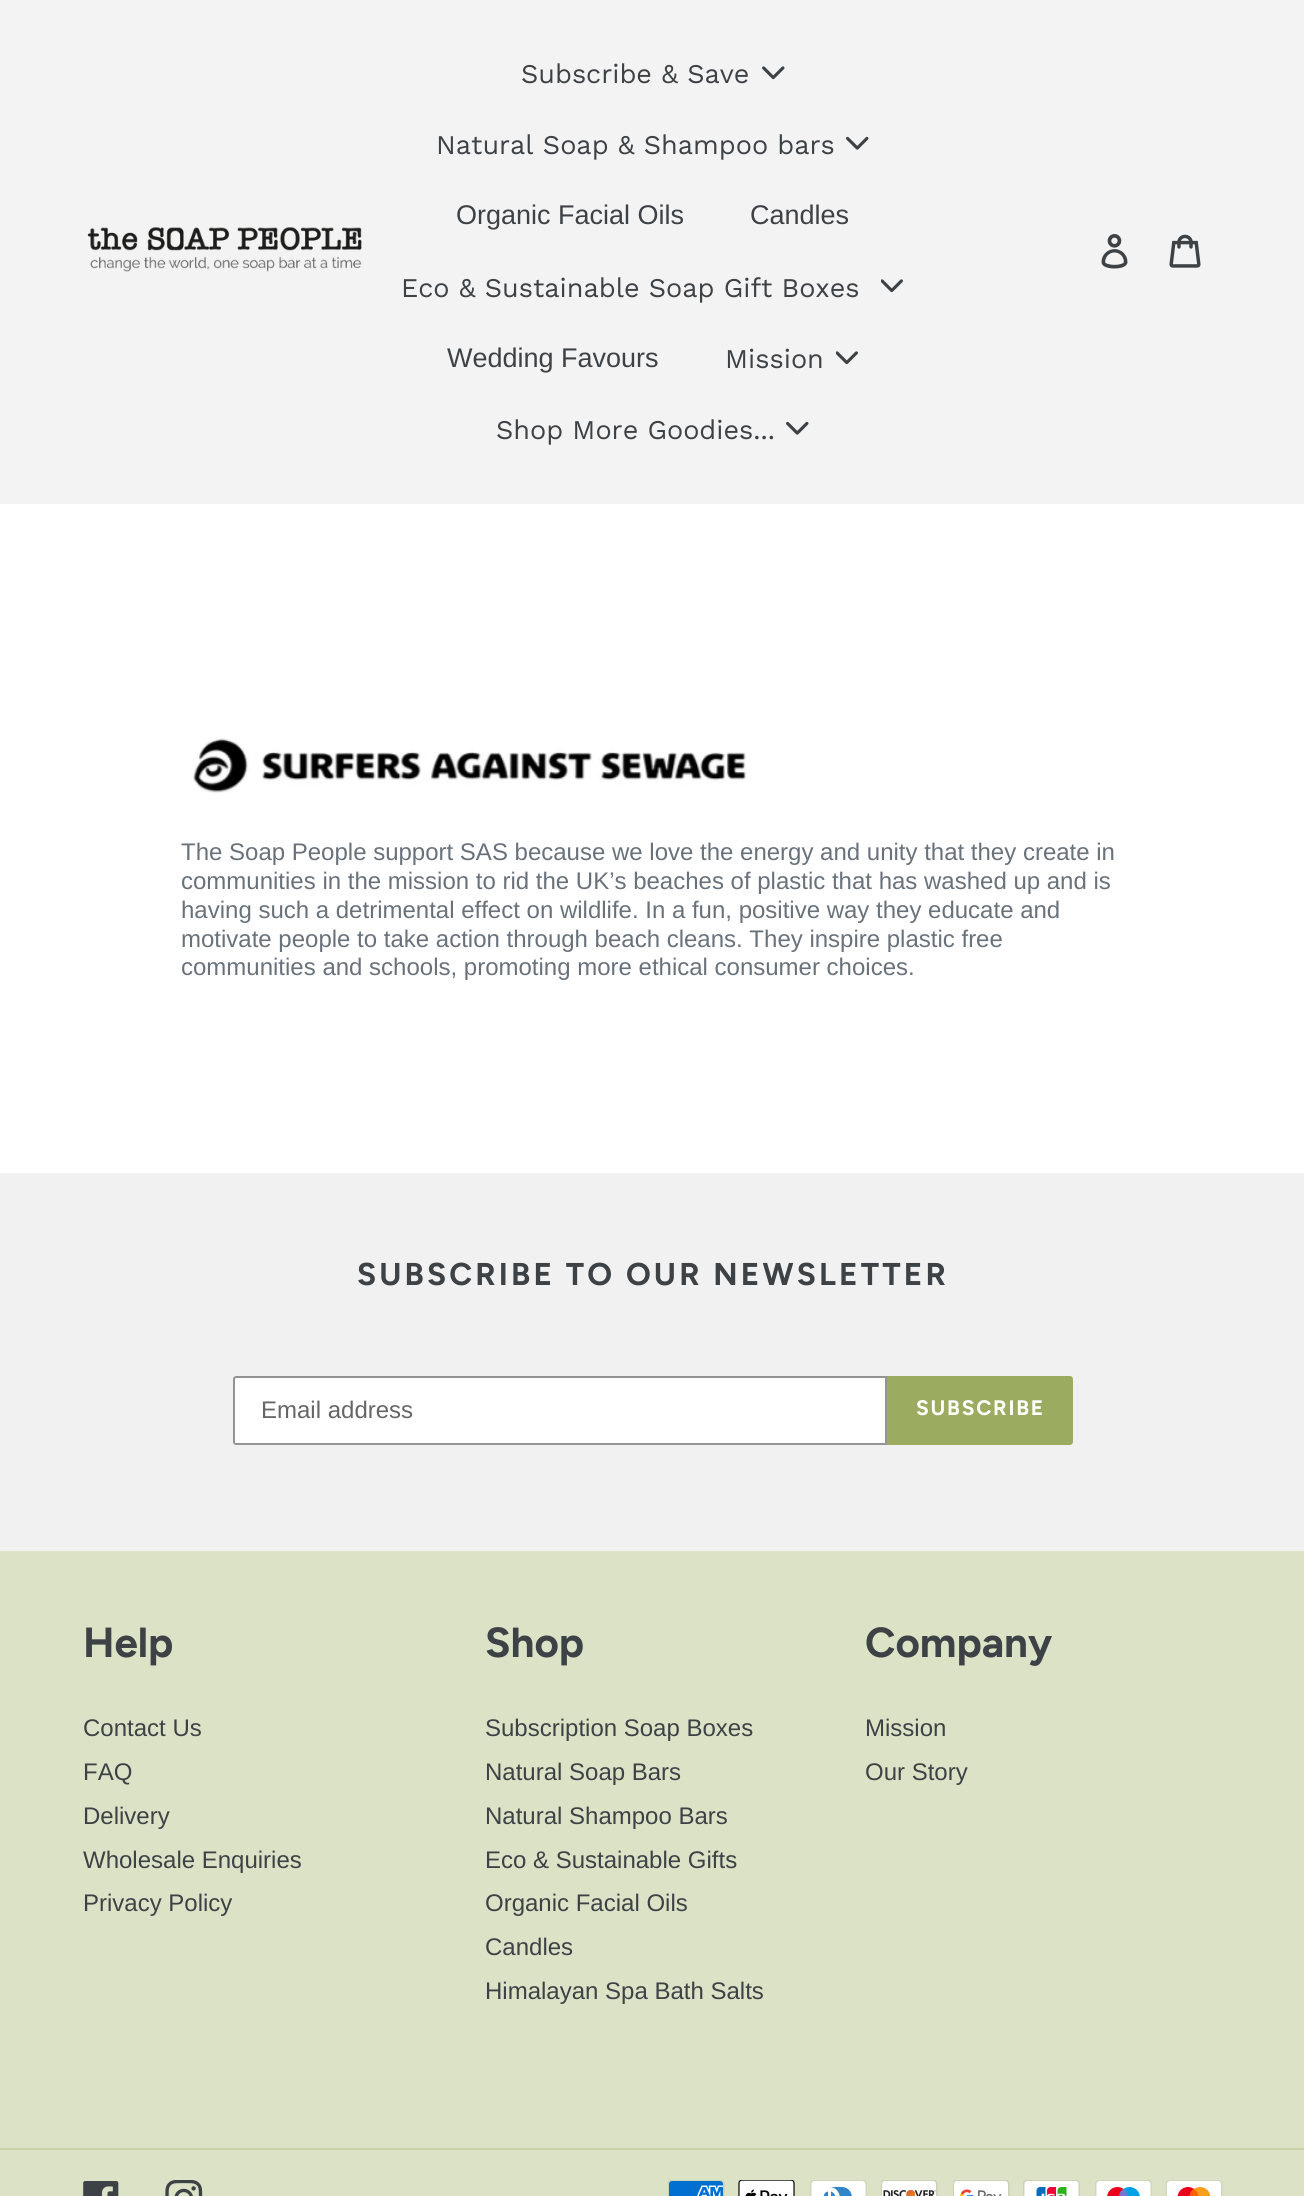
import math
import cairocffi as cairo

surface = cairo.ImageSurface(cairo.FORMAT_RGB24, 1304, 2196)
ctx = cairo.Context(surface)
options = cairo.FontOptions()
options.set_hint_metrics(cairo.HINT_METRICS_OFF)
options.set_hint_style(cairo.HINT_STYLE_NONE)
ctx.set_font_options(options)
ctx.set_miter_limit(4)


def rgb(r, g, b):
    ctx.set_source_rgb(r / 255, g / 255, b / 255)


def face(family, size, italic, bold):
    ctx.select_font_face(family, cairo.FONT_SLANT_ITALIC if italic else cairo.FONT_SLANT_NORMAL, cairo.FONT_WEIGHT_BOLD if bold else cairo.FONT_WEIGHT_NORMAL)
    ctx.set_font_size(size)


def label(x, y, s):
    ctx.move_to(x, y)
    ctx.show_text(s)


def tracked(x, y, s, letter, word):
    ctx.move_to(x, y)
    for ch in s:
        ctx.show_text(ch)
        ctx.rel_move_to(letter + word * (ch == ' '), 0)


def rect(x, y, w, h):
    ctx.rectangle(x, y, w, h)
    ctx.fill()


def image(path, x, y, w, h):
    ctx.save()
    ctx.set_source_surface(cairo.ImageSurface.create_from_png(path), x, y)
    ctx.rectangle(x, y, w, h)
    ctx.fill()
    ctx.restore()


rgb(255, 255, 255)
ctx.paint()
rgb(243, 243, 243)
rect(0, 0, 1304, 504)
image('image0.png', 87, 227, 275, 45)
face('Work Sans', 27, 0, 0)
rgb(61, 66, 70)
label(521, 83, 'Subscribe & Save')
image('image1.png', 762, 66, 23, 14)
label(436, 154, 'Natural Soap & Shampoo bars')
image('image2.png', 846, 136, 23, 14)
face('Liberation Sans', 27, 0, 0)
label(456, 224, 'Organic Facial Oils')
label(750, 224, 'Candles')
face('Work Sans', 27, 0, 0)
label(401, 297, 'Eco & Sustainable Soap Gift Boxes')
image('image3.png', 881, 279, 22, 14)
face('Liberation Sans', 27, 0, 0)
label(447, 367, 'Wedding Favours')
face('Work Sans', 27, 0, 0)
label(725, 368, 'Mission')
image('image3.png', 836, 351, 22, 14)
label(496, 439, 'Shop More Goodies...')
image('image2.png', 786, 421, 23, 14)
image('image4.png', 1101, 234, 27, 35)
image('image5.png', 1169, 234, 32, 34)
image('image6.png', 191, 738, 556, 55)
face('Liberation Sans', 24, 0, 0)
rgb(105, 114, 123)
label(181, 860, 'The Soap People support SAS because we love the energy and unity that they create in')
label(181, 889, 'communities in the mission to rid the UK’s beaches of plastic that has washed up and is')
label(181, 918, 'having such a detrimental effect on wildlife. In a fun, positive way they educate and')
label(181, 947, 'motivate people to take action through beach cleans. They inspire plastic free')
label(181, 975, 'communities and schools, promoting more ethical consumer choices.')
rgb(241, 241, 241)
rect(0, 1173, 1304, 378)
face('Figtree', 31.5, 0, 1)
rgb(61, 66, 70)
tracked(357, 1285, 'SUBSCRIBE TO OUR NEWSLETTER', 3.15, 0)
rgb(255, 255, 255)
ctx.new_path()
ctx.move_to(236, 1377)
ctx.line_to(886, 1377)
ctx.line_to(886, 1444)
ctx.line_to(236, 1444)
ctx.curve_to(235, 1444, 234, 1443, 234, 1442)
ctx.line_to(234, 1379)
ctx.curve_to(234, 1378, 235, 1377, 236, 1377)
ctx.close_path()
ctx.fill_preserve()
rgb(148, 148, 148)
ctx.stroke()
face('Liberation Sans', 24, 0, 0)
rgb(102, 102, 102)
label(261, 1418, 'Email address')
rgb(155, 172, 97)
ctx.new_path()
ctx.move_to(887, 1376)
ctx.line_to(1070, 1376)
ctx.curve_to(1071.5, 1376, 1073, 1377.5, 1073, 1379)
ctx.line_to(1073, 1442)
ctx.curve_to(1073, 1443.5, 1071.5, 1445, 1070, 1445)
ctx.line_to(887, 1445)
ctx.close_path()
ctx.fill()
face('Figtree', 21, 0, 1)
rgb(255, 255, 255)
tracked(916, 1415, 'SUBSCRIBE', 1.75, 0)
rgb(220, 226, 198)
rect(0, 1551, 1304, 645)
face('Figtree', 42, 0, 1)
rgb(61, 66, 70)
label(83, 1657, 'Help')
face('Liberation Sans', 24, 0, 0)
label(83, 1736, 'Contact Us')
label(83, 1780, 'FAQ')
label(83, 1824, 'Delivery')
label(83, 1868, 'Wholesale Enquiries')
label(83, 1911, 'Privacy Policy')
face('Figtree', 42, 0, 1)
label(485, 1657, 'Shop')
face('Liberation Sans', 24, 0, 0)
label(485, 1736, 'Subscription Soap Boxes')
label(485, 1780, 'Natural Soap Bars')
label(485, 1824, 'Natural Shampoo Bars')
label(485, 1868, 'Eco & Sustainable Gifts')
label(485, 1911, 'Organic Facial Oils')
label(485, 1955, 'Candles')
label(485, 1999, 'Himalayan Spa Bath Salts')
face('Figtree', 42, 0, 1)
label(865, 1657, 'Company')
face('Liberation Sans', 24, 0, 0)
label(865, 1736, 'Mission')
label(865, 1780, 'Our Story')
rgb(199, 209, 164)
rect(0, 2148, 1304, 2)
image('image7.png', 83, 2181, 36, 15)
image('image8.png', 165, 2180, 38, 16)
image('image9.png', 668, 2180, 57, 16)
image('image10.png', 738, 2180, 57, 16)
image('image11.png', 810, 2180, 57, 16)
image('image12.png', 881, 2180, 57, 16)
image('image13.png', 953, 2180, 57, 16)
image('image14.png', 1023, 2180, 57, 16)
image('image15.png', 1095, 2180, 57, 16)
image('image16.png', 1166, 2180, 57, 16)
surface.write_to_png('render.png')
